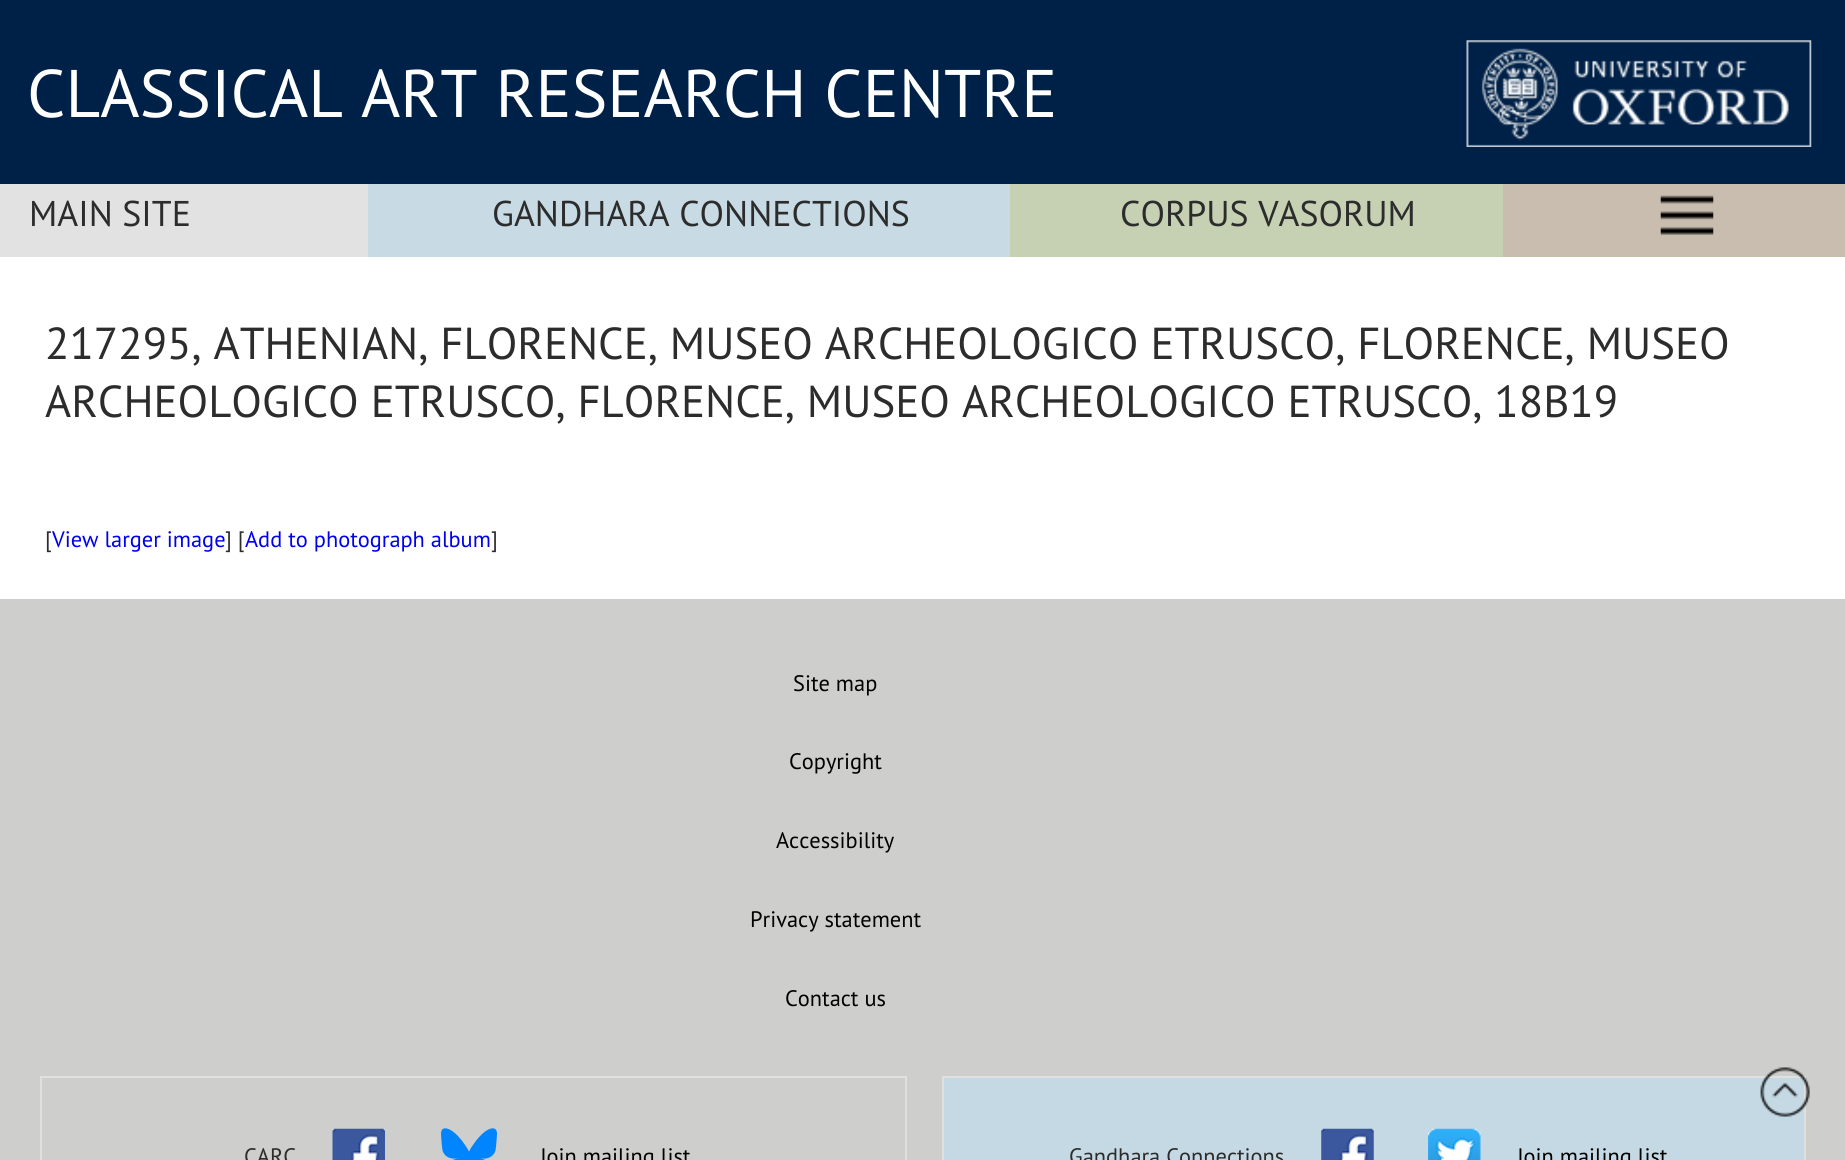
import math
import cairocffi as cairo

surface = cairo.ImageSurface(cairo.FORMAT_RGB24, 1845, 1160)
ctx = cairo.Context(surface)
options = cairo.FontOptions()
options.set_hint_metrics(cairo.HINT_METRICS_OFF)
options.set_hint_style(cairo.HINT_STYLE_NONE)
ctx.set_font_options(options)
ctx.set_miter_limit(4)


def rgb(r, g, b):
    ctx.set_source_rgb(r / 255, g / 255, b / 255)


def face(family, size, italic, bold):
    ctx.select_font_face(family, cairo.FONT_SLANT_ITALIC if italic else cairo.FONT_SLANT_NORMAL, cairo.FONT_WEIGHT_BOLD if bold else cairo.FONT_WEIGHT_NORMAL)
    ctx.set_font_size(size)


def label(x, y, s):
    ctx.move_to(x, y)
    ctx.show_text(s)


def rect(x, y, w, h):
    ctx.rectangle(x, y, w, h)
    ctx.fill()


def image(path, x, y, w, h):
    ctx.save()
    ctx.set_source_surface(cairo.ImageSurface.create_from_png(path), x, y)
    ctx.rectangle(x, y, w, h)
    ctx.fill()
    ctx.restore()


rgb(255, 255, 255)
ctx.paint()
rgb(0, 33, 71)
rect(0, 0, 1845, 184)
face('PT Sans', 67.25, 0, 0)
rgb(255, 255, 255)
label(27, 117, 'CLASSICAL ART RESEARCH CENTRE')
image('image0.png', 1466, 40, 346, 107)
rgb(226, 226, 226)
rect(0, 184, 368, 73)
face('PT Sans', 35.8, 0, 0)
rgb(44, 44, 44)
label(29, 226, 'MAIN SITE')
rgb(200, 219, 229)
rect(368, 184, 642, 73)
rgb(44, 44, 44)
label(492, 226, 'GANDHARA CONNECTIONS')
rgb(197, 209, 178)
rect(1010, 184, 493, 73)
rgb(44, 44, 44)
label(1120, 226, 'CORPUS VASORUM')
rgb(200, 189, 174)
rect(1503, 184, 342, 73)
image('image1.png', 1660, 195, 54, 40)
face('PT Sans', 44.8, 0, 0)
rgb(44, 44, 44)
label(45, 359, '217295, ATHENIAN, FLORENCE, MUSEO ARCHEOLOGICO ETRUSCO, FLORENCE, MUSEO')
label(45, 417, 'ARCHEOLOGICO ETRUSCO, FLORENCE, MUSEO ARCHEOLOGICO ETRUSCO, 18B19')
face('PT Sans', 22.4, 0, 0)
label(45, 547, '[')
rgb(0, 0, 238)
label(52, 547, 'View larger image')
rgb(44, 44, 44)
label(225, 547, '] [')
rgb(0, 0, 238)
label(245, 547, 'Add to photograph album')
rgb(44, 44, 44)
label(491, 547, ']')
rgb(206, 206, 204)
rect(0, 599, 1845, 561)
rgb(0, 0, 0)
label(793, 691, 'Site map')
label(789, 769, 'Copyright')
label(776, 848, 'Accessibility')
label(750, 927, 'Privacy statement')
label(785, 1006, 'Contact us')
ctx.rectangle(41, 1077, 865, 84)
rgb(224, 224, 224)
ctx.stroke()
rgb(44, 44, 44)
label(244, 1164, 'CARC')
image('image2.png', 332, 1128, 53, 32)
image('image3.png', 441, 1128, 56, 32)
rgb(0, 0, 0)
label(540, 1164, 'Join mailing list')
rgb(197, 217, 228)
ctx.rectangle(943, 1077, 862, 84)
ctx.fill_preserve()
rgb(224, 224, 224)
ctx.stroke()
rgb(44, 44, 44)
label(1069, 1164, 'Gandhara Connections')
image('image4.png', 1321, 1128, 53, 32)
image('image5.png', 1428, 1128, 53, 32)
rgb(0, 0, 0)
label(1517, 1164, 'Join mailing list')
image('image6.png', 1760, 1067, 50, 50)
surface.write_to_png('render.png')
